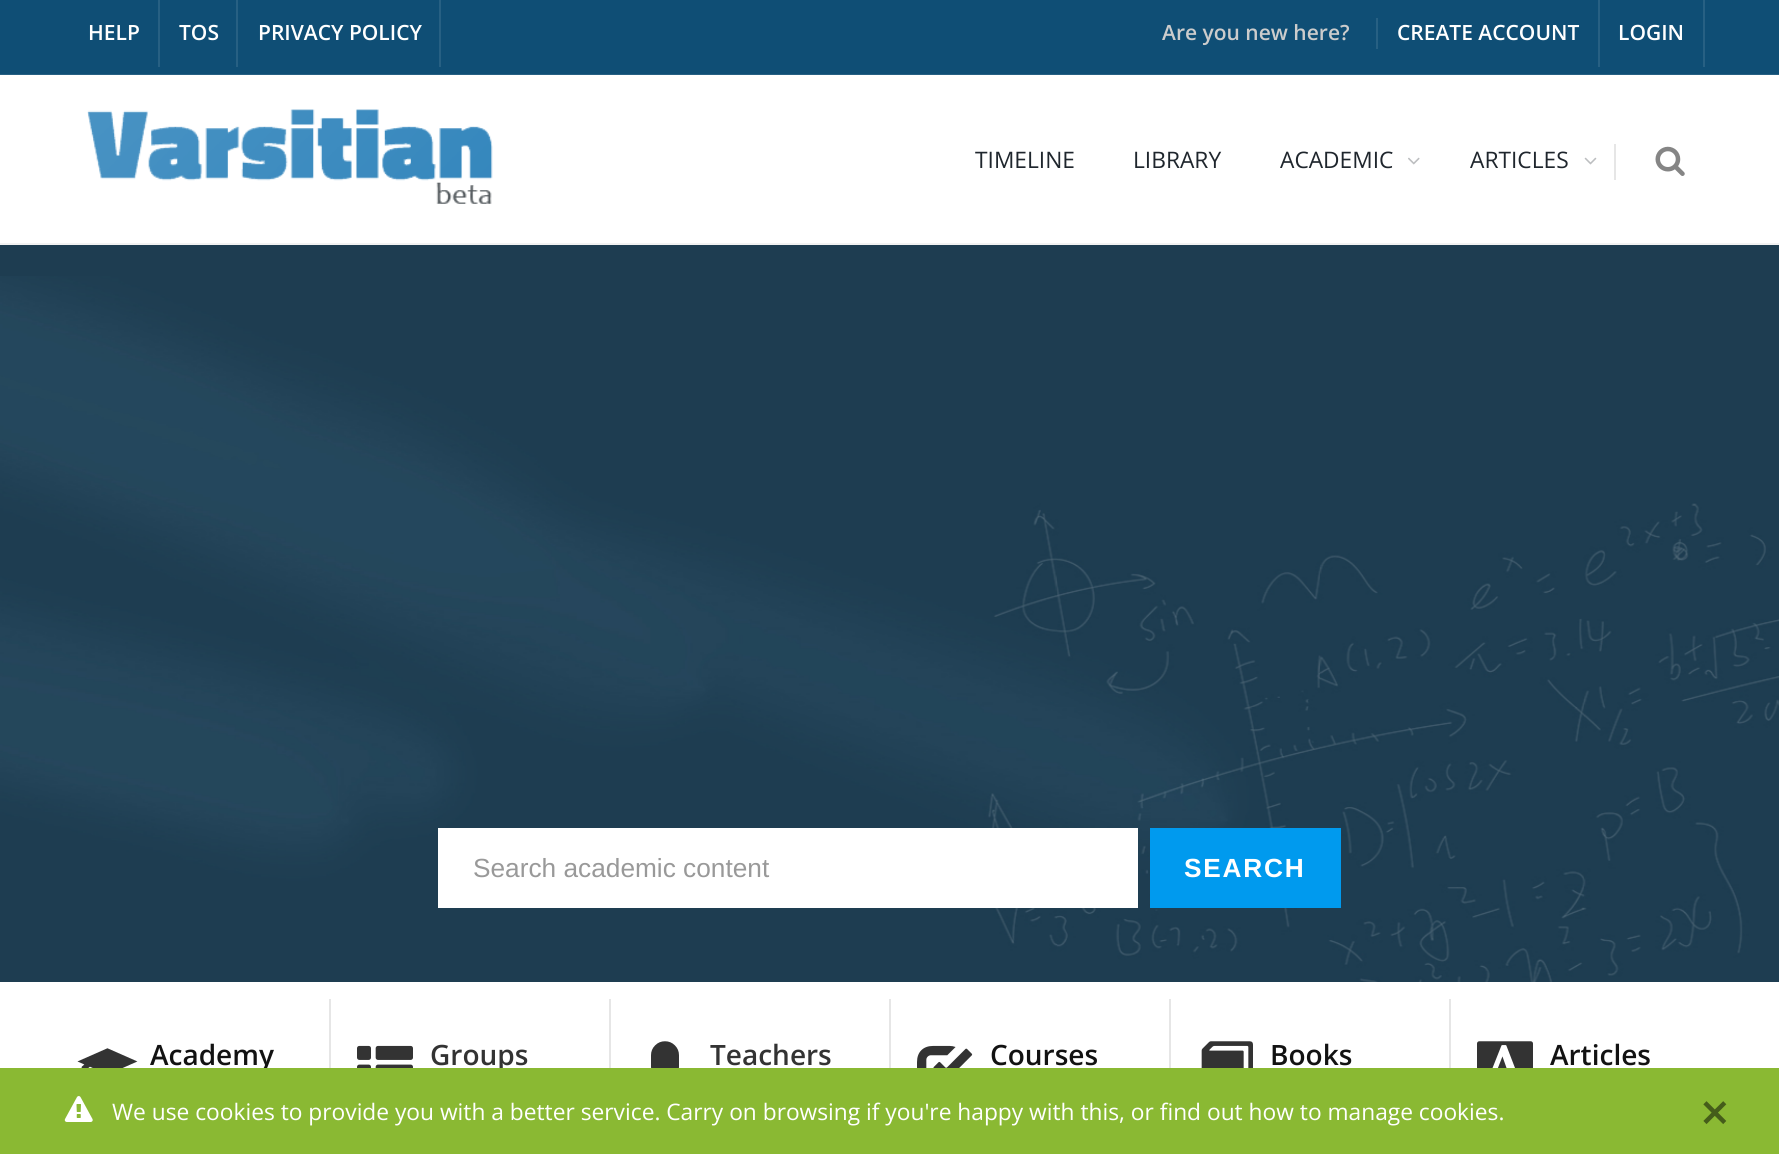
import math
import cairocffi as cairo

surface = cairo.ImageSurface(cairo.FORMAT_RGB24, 1779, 1154)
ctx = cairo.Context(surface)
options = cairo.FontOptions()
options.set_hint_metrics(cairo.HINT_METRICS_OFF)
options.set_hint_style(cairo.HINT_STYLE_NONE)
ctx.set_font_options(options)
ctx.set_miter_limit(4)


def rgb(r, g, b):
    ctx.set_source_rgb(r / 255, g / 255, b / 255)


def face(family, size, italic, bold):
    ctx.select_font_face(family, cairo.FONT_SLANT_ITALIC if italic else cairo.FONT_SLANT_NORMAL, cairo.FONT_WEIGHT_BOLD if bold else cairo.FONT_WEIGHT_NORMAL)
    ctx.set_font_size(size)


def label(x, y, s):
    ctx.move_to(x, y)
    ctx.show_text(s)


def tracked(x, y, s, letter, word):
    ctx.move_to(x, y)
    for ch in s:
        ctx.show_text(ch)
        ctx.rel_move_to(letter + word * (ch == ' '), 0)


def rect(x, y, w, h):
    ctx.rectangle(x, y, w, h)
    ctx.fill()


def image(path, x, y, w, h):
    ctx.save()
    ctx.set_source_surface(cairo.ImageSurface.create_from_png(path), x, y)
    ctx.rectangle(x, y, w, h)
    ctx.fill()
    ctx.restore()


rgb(30, 61, 81)
ctx.paint()
rgb(15, 78, 117)
rect(0, 0, 1779, 74)
rgb(39, 96, 131)
rect(0, 74, 1779, 1)
rect(158, 0, 2, 67)
face('Open Sans SemiBold', 21, 0, 0)
rgb(255, 255, 255)
label(88, 40, 'HELP')
rgb(39, 96, 131)
rect(236, 0, 2, 67)
rgb(255, 255, 255)
label(179, 40, 'TOS')
rgb(39, 96, 131)
rect(439, 0, 2, 67)
rgb(255, 255, 255)
label(258, 40, 'PRIVACY POLICY')
rgb(39, 96, 131)
rect(1376, 18, 2, 31)
rgb(204, 204, 204)
label(1162, 40, 'Are you new here?')
rgb(39, 96, 131)
rect(1598, 0, 2, 67)
rgb(255, 255, 255)
label(1397, 40, 'CREATE ACCOUNT')
rgb(39, 96, 131)
rect(1703, 0, 2, 67)
rgb(255, 255, 255)
label(1618, 40, 'LOGIN')
rect(0, 75, 1779, 168)
rgb(242, 242, 242)
rect(0, 243, 1779, 2)
image('image0.png', 87, 109, 406, 95)
face('Open Sans', 22.75, 0, 0)
rgb(31, 38, 45)
label(975, 168, 'TIMELINE')
label(1133, 168, 'LIBRARY')
label(1280, 168, 'ACADEMIC')
image('image1.png', 1408, 157, 12, 8)
label(1470, 168, 'ARTICLES')
image('image2.png', 1584, 157, 13, 8)
rgb(230, 230, 230)
rect(1614, 144, 2, 36)
image('image3.png', 1655, 146, 30, 30)
image('image4.png', 0, 276, 1779, 706)
rgb(255, 255, 255)
rect(438, 828, 700, 80)
face('Liberation Sans', 26.25, 0, 0)
rgb(153, 153, 153)
label(473, 877, 'Search academic content')
rgb(0, 154, 238)
rect(1150, 828, 191, 80)
face('Liberation Sans', 26.25, 0, 1)
rgb(255, 255, 255)
tracked(1184, 877, 'SEARCH', 1.75, 0)
rect(0, 982, 1779, 86)
rgb(230, 230, 230)
rect(329, 999, 2, 69)
image('image5.png', 77, 1048, 61, 20)
face('Open Sans SemiBold', 28, 0, 0)
rgb(18, 18, 18)
label(150, 1065, 'Academy')
rgb(230, 230, 230)
rect(609, 999, 2, 69)
image('image6.png', 357, 1045, 56, 23)
rgb(51, 51, 51)
label(430, 1065, 'Groups')
rgb(230, 230, 230)
rect(889, 999, 2, 69)
image('image7.png', 651, 1041, 28, 27)
rgb(51, 51, 51)
label(710, 1065, 'Teachers')
rgb(230, 230, 230)
rect(1169, 999, 2, 69)
image('image8.png', 917, 1045, 56, 23)
rgb(18, 18, 18)
label(990, 1065, 'Courses')
rgb(230, 230, 230)
rect(1449, 999, 2, 69)
image('image9.png', 1201, 1041, 52, 27)
rgb(18, 18, 18)
label(1270, 1065, 'Books')
image('image10.png', 1477, 1041, 56, 27)
label(1550, 1065, 'Articles')
rgb(138, 185, 51)
rect(0, 1068, 1779, 86)
image('image11.png', 64, 1096, 29, 26)
face('Open Sans', 22.75, 0, 0)
rgb(255, 255, 255)
label(112, 1120, 'We use cookies to provide you with a better service. Carry on browsing if you\'re happy with this, or find out how to manage cookies.')
face('Open Sans SemiBold', 52, 0, 0)
rgb(69, 93, 26)
label(1700, 1131, '×')
surface.write_to_png('render.png')
